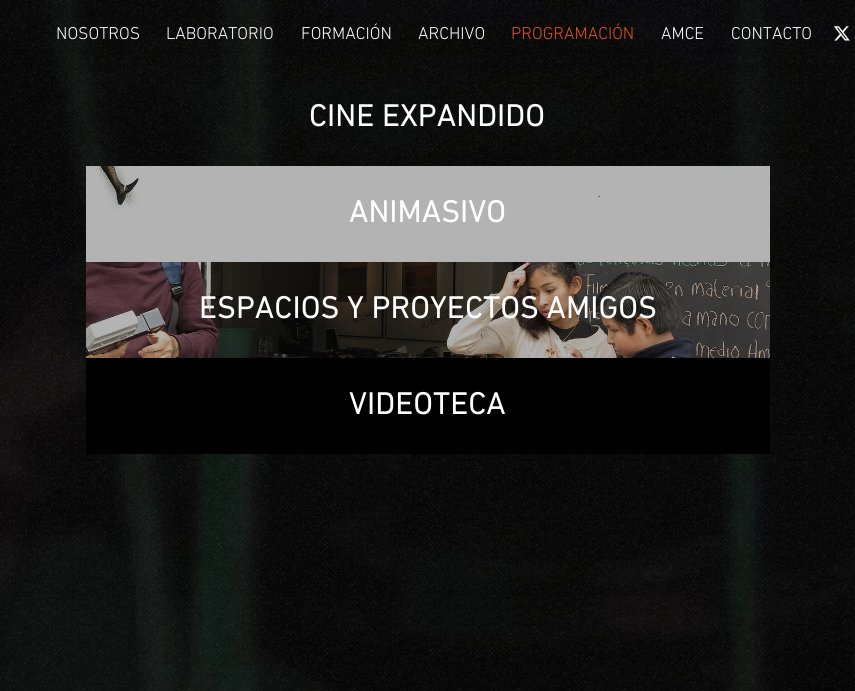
import math
import cairocffi as cairo

surface = cairo.ImageSurface(cairo.FORMAT_RGB24, 855, 691)
ctx = cairo.Context(surface)
options = cairo.FontOptions()
options.set_hint_metrics(cairo.HINT_METRICS_OFF)
options.set_hint_style(cairo.HINT_STYLE_NONE)
ctx.set_font_options(options)
ctx.set_miter_limit(4)


def rgb(r, g, b):
    ctx.set_source_rgb(r / 255, g / 255, b / 255)


def face(family, size, italic, bold):
    ctx.select_font_face(family, cairo.FONT_SLANT_ITALIC if italic else cairo.FONT_SLANT_NORMAL, cairo.FONT_WEIGHT_BOLD if bold else cairo.FONT_WEIGHT_NORMAL)
    ctx.set_font_size(size)


def label(x, y, s):
    ctx.move_to(x, y)
    ctx.show_text(s)


def rect(x, y, w, h):
    ctx.rectangle(x, y, w, h)
    ctx.fill()


def image(path, x, y, w, h):
    ctx.save()
    ctx.set_source_surface(cairo.ImageSurface.create_from_png(path), x, y)
    ctx.rectangle(x, y, w, h)
    ctx.fill()
    ctx.restore()


rgb(255, 255, 255)
ctx.paint()
image('image0.png', 0, 0, 855, 691)
face('DIN Next Light', 17.5, 0, 0)
rgb(255, 255, 255)
label(56, 39, 'NOSOTROS')
label(166, 39, 'LABORATORIO')
label(301, 39, 'FORMACIÓN')
label(418, 39, 'ARCHIVO')
rgb(222, 80, 33)
label(511, 39, 'PROGRAMACIÓN')
rgb(255, 255, 255)
label(661, 39, 'AMCE')
label(731, 39, 'CONTACTO')
image('image1.png', 834, 26, 16, 15)
face('DIN Next', 32, 0, 0)
label(309, 126, 'CINE EXPANDIDO')
image('image2.png', 86, 166, 684, 96)
label(349, 222, 'ANIMASIVO')
image('image3.png', 86, 262, 684, 96)
label(199, 318, 'ESPACIOS Y PROYECTOS AMIGOS')
rgb(0, 0, 0)
rect(86, 358, 684, 96)
rgb(255, 255, 255)
label(349, 414, 'VIDEOTECA')
surface.write_to_png('render.png')
